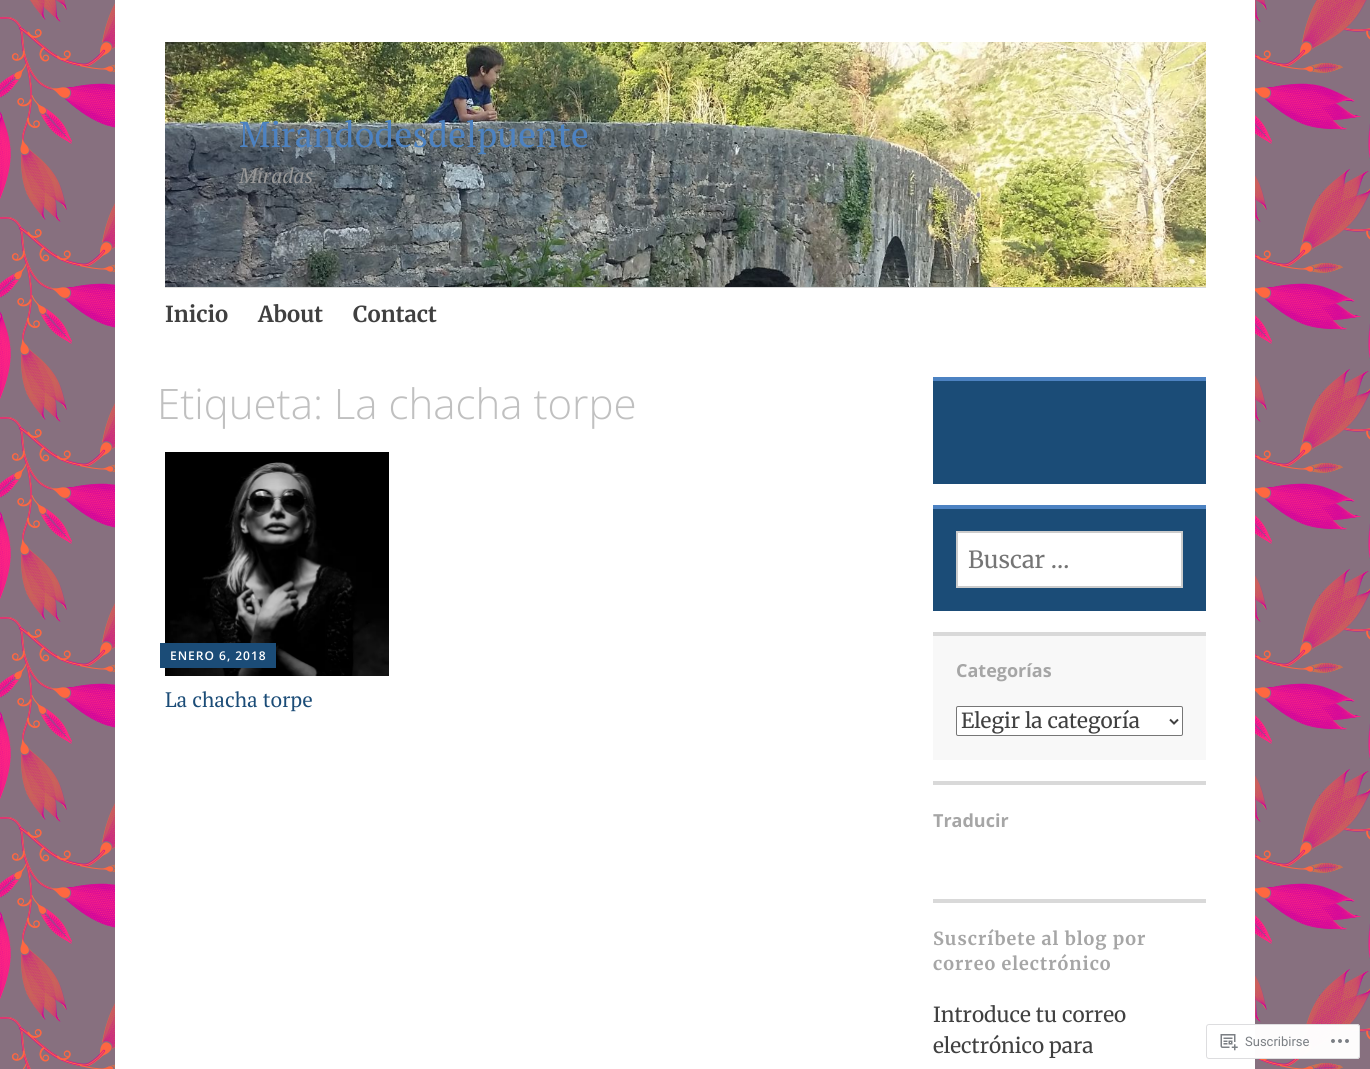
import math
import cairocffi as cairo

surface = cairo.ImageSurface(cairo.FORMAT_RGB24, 1370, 1069)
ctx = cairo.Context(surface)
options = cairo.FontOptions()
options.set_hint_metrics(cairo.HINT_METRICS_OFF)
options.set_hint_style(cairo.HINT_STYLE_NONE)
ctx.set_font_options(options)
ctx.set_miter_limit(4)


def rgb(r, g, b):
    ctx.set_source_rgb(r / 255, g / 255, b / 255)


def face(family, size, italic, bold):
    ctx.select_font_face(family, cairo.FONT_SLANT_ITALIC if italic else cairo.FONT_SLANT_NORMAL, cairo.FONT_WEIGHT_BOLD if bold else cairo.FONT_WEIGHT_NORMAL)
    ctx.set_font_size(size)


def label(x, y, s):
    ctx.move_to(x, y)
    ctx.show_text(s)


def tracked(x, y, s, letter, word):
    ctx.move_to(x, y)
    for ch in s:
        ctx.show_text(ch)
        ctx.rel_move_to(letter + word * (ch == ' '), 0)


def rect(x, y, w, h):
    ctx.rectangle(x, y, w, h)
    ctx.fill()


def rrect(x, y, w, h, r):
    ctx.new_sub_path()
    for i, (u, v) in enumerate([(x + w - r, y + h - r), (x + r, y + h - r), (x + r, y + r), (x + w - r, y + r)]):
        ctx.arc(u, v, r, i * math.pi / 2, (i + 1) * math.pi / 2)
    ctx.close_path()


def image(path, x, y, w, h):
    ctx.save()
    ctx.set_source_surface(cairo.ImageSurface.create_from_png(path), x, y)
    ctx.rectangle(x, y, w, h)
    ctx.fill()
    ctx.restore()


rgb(255, 255, 255)
ctx.paint()
image('image0.png', 0, 0, 1370, 1069)
rgb(255, 255, 255)
rect(115, 0, 1140, 1069)
image('image1.png', 165, 42, 1041, 245)
face('PT Serif', 36, 0, 0)
rgb(76, 130, 194)
label(239, 147, 'Mirandodesdelpuente')
face('PT Serif', 21, 1, 0)
rgb(153, 153, 153)
label(239, 183, 'Miradas')
rgb(217, 217, 217)
rect(165, 287, 1041, 1)
face('Merriweather', 22, 0, 1)
rgb(64, 64, 64)
label(165, 322, 'Inicio')
label(258, 322, 'About')
label(353, 322, 'Contact')
face('Open Sans Light', 42, 0, 0)
rgb(192, 192, 192)
label(157, 419, 'Etiqueta: La chacha torpe')
image('image2.png', 165, 452, 224, 224)
rgb(27, 76, 119)
rect(160, 643, 116, 25)
face('Open Sans SemiBold', 12, 0, 0)
rgb(255, 255, 255)
tracked(170, 660, 'ENERO 6, 2018', 1, 0)
face('PT Serif', 21, 0, 0)
rgb(27, 76, 119)
label(165, 707, 'La chacha torpe')
rect(933, 381, 273, 103)
rgb(76, 130, 194)
rect(933, 377, 273, 4)
rgb(27, 76, 119)
rect(933, 509, 273, 102)
rgb(76, 130, 194)
rect(933, 505, 273, 4)
rgb(255, 255, 255)
ctx.rectangle(957, 532, 225, 55)
ctx.fill_preserve()
rgb(204, 204, 204)
ctx.stroke()
face('Merriweather', 23.5, 0, 0)
rgb(117, 117, 117)
label(968, 568, 'Buscar …')
rgb(248, 248, 248)
rect(933, 636, 273, 124)
rgb(217, 217, 217)
rect(933, 632, 273, 4)
face('Open Sans', 18, 0, 1)
rgb(166, 166, 166)
label(956, 677, 'Categorías')
rgb(255, 255, 255)
rrect(956.5, 706.5, 226, 29, 1.5)
ctx.fill_preserve()
rgb(118, 118, 118)
ctx.set_line_width(1)
ctx.stroke()
ctx.new_path()
ctx.move_to(1170, 719.5)
ctx.line_to(1174, 723.5)
ctx.line_to(1178, 719.5)
rgb(64, 64, 64)
ctx.set_line_width(2)
ctx.stroke()
face('Merriweather', 20.75, 0, 0)
label(961, 728, 'Elegir la categoría')
rgb(217, 217, 217)
rect(933, 781, 273, 4)
face('Open Sans', 18, 0, 1)
rgb(166, 166, 166)
label(933, 827, 'Traducir')
rgb(217, 217, 217)
rect(933, 899, 273, 4)
face('Merriweather', 18, 0, 1)
rgb(166, 166, 166)
tracked(933, 945, 'Suscríbete al blog por', 1, 0)
tracked(933, 970, 'correo electrónico', 1, 0)
face('Merriweather', 20.75, 0, 0)
rgb(64, 64, 64)
label(933, 1022, 'Introduce tu correo')
label(933, 1053, 'electrónico para')
ctx.set_source_rgba(1, 1, 1, 0.98)
rrect(1206, 1024, 154, 35, 3)
ctx.fill()
rrect(1206.5, 1024.5, 153, 34, 2.5)
ctx.set_source_rgba(0.863, 0.863, 0.871, 0.98)
ctx.set_line_width(1)
ctx.stroke()
image('image3.png', 1220, 1034, 18, 17)
face('Roboto', 13, 0, 0)
rgb(123, 127, 132)
label(1245, 1046, 'Suscribirse')
image('image4.png', 1331, 1039, 18, 4)
surface.write_to_png('render.png')
